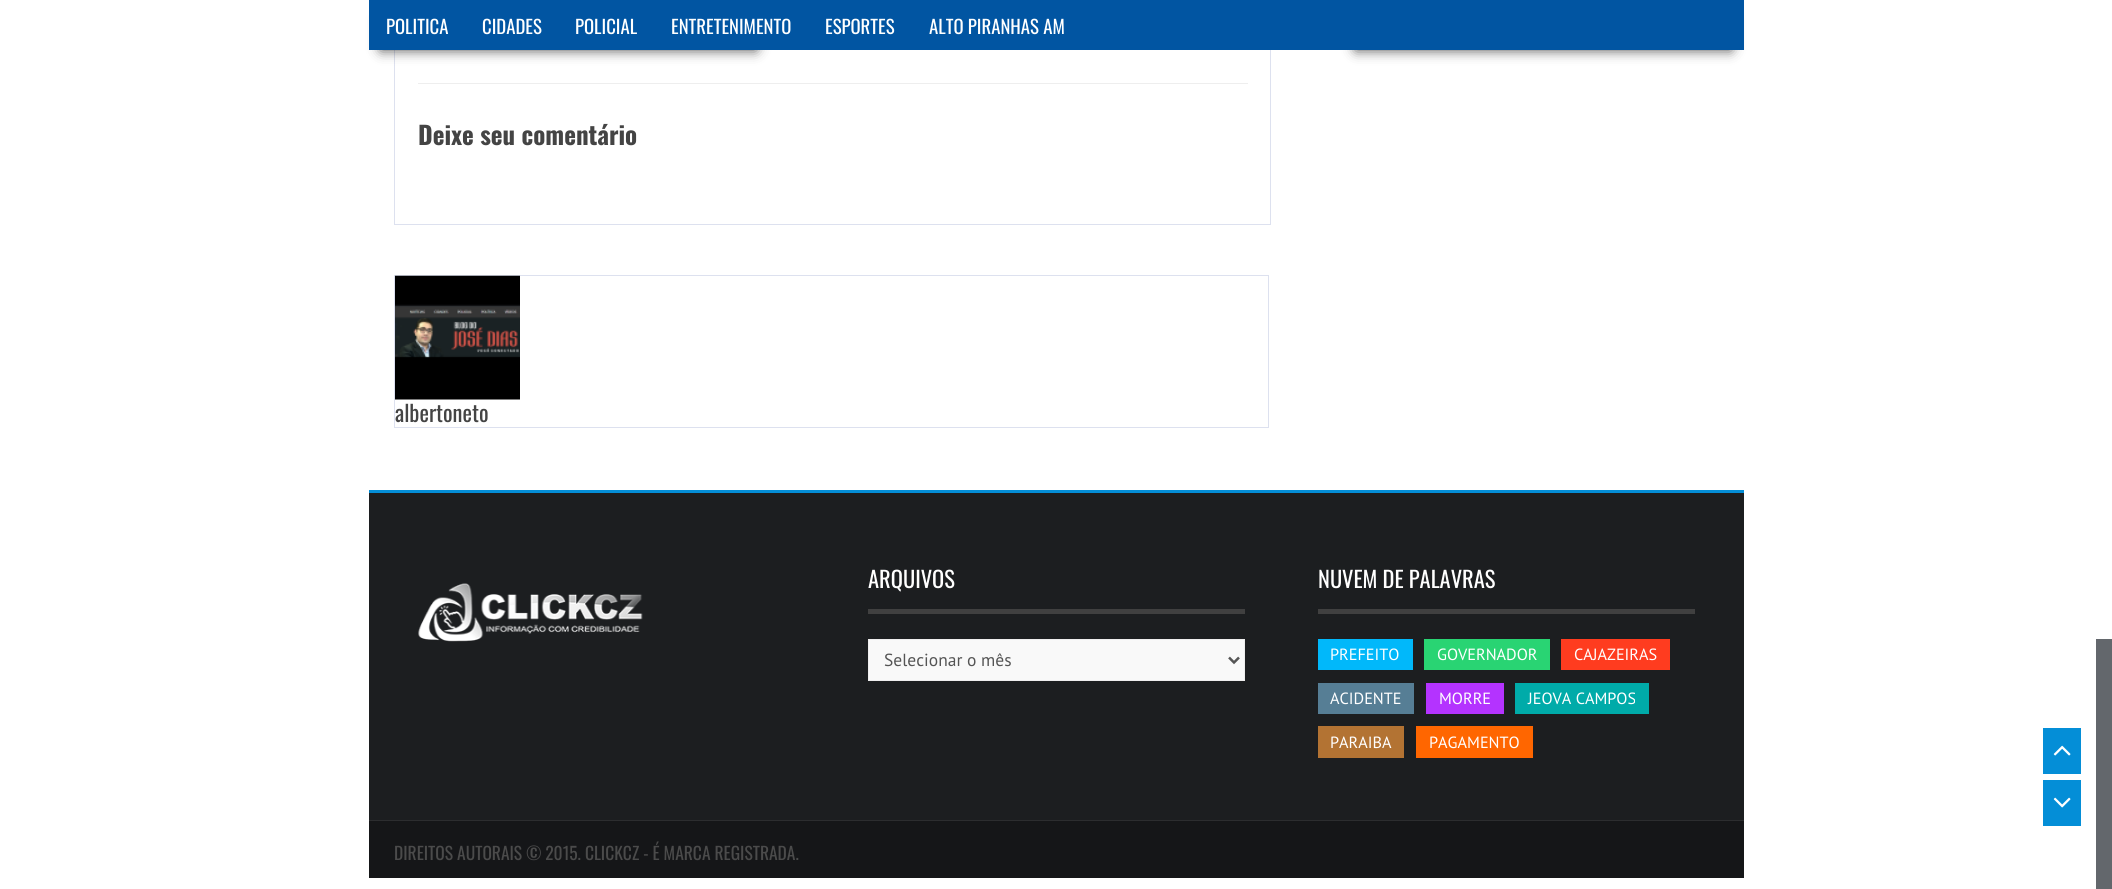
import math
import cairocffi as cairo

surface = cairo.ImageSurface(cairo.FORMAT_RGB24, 2112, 889)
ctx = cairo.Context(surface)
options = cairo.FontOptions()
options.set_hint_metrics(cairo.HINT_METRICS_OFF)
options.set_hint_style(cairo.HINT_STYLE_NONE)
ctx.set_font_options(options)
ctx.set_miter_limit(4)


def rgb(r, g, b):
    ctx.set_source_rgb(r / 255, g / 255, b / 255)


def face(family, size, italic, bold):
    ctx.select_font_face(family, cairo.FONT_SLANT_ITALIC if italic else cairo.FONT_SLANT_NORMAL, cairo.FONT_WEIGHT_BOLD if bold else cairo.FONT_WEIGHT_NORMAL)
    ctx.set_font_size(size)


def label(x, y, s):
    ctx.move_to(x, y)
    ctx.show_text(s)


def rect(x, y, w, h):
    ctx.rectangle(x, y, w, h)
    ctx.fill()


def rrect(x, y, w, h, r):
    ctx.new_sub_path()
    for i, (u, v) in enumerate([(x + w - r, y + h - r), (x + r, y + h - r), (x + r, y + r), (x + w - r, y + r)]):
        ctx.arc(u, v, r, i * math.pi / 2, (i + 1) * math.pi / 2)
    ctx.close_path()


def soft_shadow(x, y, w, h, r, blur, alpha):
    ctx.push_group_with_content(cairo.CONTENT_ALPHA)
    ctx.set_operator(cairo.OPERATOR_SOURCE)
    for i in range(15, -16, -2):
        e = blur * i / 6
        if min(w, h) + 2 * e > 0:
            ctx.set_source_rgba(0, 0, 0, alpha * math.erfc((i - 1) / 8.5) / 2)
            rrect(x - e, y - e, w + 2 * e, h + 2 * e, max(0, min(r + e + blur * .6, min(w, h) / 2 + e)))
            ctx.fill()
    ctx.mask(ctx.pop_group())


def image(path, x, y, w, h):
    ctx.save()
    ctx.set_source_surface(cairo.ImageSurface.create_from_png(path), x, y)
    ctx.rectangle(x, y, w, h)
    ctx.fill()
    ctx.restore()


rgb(255, 255, 255)
ctx.paint()
ctx.rectangle(394.5, -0.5, 876, 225)
rgb(221, 225, 239)
ctx.set_line_width(1)
ctx.stroke()
rgb(0, 0, 0)
soft_shadow(381, 19, 375, 31, 0, 6.5, 0.7)
soft_shadow(1356, 19, 375, 31, 0, 6.5, 0.7)
rgb(1, 85, 162)
rect(369, 0, 1375, 50)
face('Oswald', 18.75, 0, 0)
rgb(255, 255, 255)
label(386, 34, 'POLITICA')
label(482, 34, 'CIDADES')
label(575, 34, 'POLICIAL')
label(671, 34, 'ENTRETENIMENTO')
label(825, 34, 'ESPORTES')
label(929, 34, 'ALTO PIRANHAS AM')
rgb(238, 238, 238)
rect(418, 83, 830, 1)
face('Oswald', 25, 0, 1)
rgb(68, 68, 68)
label(418, 145, 'Deixe seu comentário')
ctx.rectangle(394.5, 275.5, 874, 152)
rgb(221, 225, 239)
ctx.stroke()
image('image0.png', 395, 275, 125, 125)
face('Oswald', 22.5, 0, 0)
rgb(68, 68, 68)
label(395, 422, 'albertoneto')
rgb(28, 30, 32)
rect(369, 493, 1375, 327)
rgb(4, 142, 215)
rect(369, 490, 1375, 3)
image('image1.png', 418, 583, 225, 59)
rgb(64, 64, 64)
rect(868, 609, 377, 5)
rgb(255, 255, 255)
label(868, 588, 'ARQUIVOS')
rgb(249, 249, 249)
ctx.rectangle(868.5, 639.5, 376, 41)
ctx.fill_preserve()
rgb(238, 238, 238)
ctx.stroke()
ctx.new_path()
ctx.move_to(1229, 657.5)
ctx.line_to(1234, 662.5)
ctx.line_to(1239, 657.5)
rgb(85, 85, 85)
ctx.set_line_width(2.5)
ctx.stroke()
face('PT Sans', 17.5, 0, 0)
label(884, 666, 'Selecionar o mês')
rgb(64, 64, 64)
rect(1318, 609, 377, 5)
face('Oswald', 22.5, 0, 0)
rgb(255, 255, 255)
label(1318, 588, 'NUVEM DE PALAVRAS')
rgb(1, 184, 250)
rect(1318, 639, 95, 31)
face('PT Sans', 16.25, 0, 0)
rgb(255, 255, 255)
label(1330, 660, 'PREFEITO')
rgb(41, 212, 115)
rect(1424, 639, 126, 31)
rgb(255, 255, 255)
label(1437, 660, 'GOVERNADOR')
rgb(255, 60, 31)
rect(1561, 639, 109, 31)
rgb(255, 255, 255)
label(1574, 660, 'CAJAZEIRAS')
rgb(86, 126, 149)
rect(1318, 683, 96, 31)
rgb(255, 255, 255)
label(1330, 704, 'ACIDENTE')
rgb(180, 51, 255)
rect(1426, 683, 78, 31)
rgb(255, 255, 255)
label(1439, 704, 'MORRE')
rgb(0, 171, 169)
rect(1515, 683, 134, 31)
rgb(255, 255, 255)
label(1528, 704, 'JEOVA CAMPOS')
rgb(179, 115, 51)
rect(1318, 726, 86, 32)
rgb(255, 255, 255)
label(1330, 748, 'PARAIBA')
rgb(255, 102, 0)
rect(1416, 726, 117, 32)
rgb(255, 255, 255)
label(1429, 748, 'PAGAMENTO')
rgb(4, 142, 215)
rect(2043, 728, 38, 46)
image('image2.png', 2053, 745, 18, 11)
rect(2043, 780, 38, 46)
image('image3.png', 2053, 797, 18, 11)
rgb(21, 22, 24)
rect(369, 821, 1375, 57)
rgb(44, 45, 47)
rect(369, 820, 1375, 1)
face('Oswald', 17.5, 0, 0)
rgb(75, 75, 75)
label(394, 860, 'DIREITOS AUTORAIS © 2015. CLICKCZ - É MARCA REGISTRADA.')
rgb(99, 103, 108)
rect(2096, 639, 16, 250)
surface.write_to_png('render.png')
